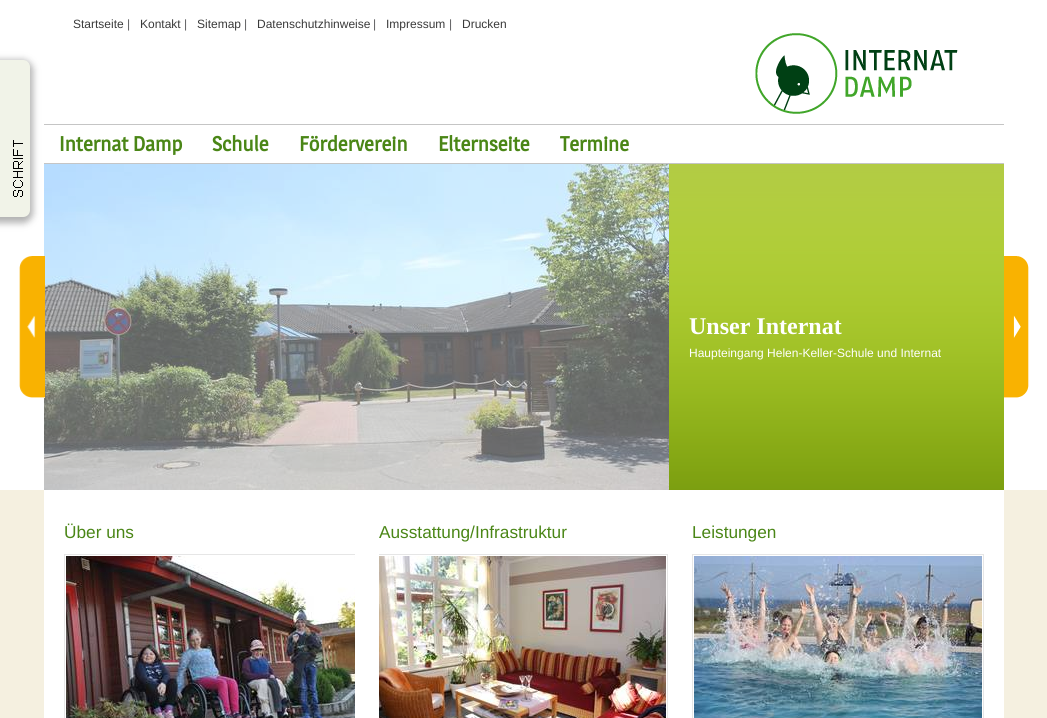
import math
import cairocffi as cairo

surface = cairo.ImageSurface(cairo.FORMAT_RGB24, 1047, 718)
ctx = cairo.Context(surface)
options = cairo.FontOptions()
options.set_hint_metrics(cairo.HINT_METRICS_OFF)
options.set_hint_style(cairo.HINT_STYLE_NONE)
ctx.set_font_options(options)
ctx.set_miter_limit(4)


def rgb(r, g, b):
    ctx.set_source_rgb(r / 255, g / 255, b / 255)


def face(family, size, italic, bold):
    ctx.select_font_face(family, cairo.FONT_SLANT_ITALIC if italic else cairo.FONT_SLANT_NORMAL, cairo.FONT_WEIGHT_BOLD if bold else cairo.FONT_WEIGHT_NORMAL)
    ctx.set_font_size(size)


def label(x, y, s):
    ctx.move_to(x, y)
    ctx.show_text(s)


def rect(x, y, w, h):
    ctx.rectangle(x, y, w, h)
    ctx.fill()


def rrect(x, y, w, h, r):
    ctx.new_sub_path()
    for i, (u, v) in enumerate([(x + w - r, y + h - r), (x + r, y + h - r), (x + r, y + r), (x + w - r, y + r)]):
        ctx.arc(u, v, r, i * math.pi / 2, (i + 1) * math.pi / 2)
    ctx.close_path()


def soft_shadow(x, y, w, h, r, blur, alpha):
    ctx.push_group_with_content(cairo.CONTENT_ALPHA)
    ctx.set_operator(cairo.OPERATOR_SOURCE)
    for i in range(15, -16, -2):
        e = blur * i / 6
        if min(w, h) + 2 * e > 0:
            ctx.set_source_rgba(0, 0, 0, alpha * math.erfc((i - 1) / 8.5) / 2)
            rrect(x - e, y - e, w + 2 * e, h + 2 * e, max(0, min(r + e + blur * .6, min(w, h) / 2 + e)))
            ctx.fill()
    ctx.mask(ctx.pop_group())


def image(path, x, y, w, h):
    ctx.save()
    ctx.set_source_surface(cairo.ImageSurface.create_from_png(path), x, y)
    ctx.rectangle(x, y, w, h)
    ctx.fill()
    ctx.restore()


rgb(255, 255, 255)
ctx.paint()
rgb(197, 197, 197)
rect(44, 124, 960, 1)
rect(44, 163, 960, 1)
rgb(100, 100, 100)
soft_shadow(-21, 60, 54, 163, 10, 3.5, 0.5)
rgb(241, 243, 232)
ctx.new_path()
ctx.move_to(-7, 60)
ctx.line_to(23, 60)
ctx.curve_to(27, 60, 30, 63, 30, 67)
ctx.line_to(30, 210)
ctx.curve_to(30, 214, 27, 217, 23, 217)
ctx.line_to(-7, 217)
ctx.close_path()
ctx.fill()
image('image0.png', 13, 140, 10, 57)
face('Liberation Sans', 12, 0, 0)
rgb(58, 58, 58)
label(73, 28, 'Startseite')
rgb(93, 93, 95)
label(127, 28, '|')
rgb(58, 58, 58)
label(140, 28, 'Kontakt')
rgb(93, 93, 95)
label(184, 28, '|')
rgb(58, 58, 58)
label(197, 28, 'Sitemap')
rgb(93, 93, 95)
label(244, 28, '|')
rgb(58, 58, 58)
label(257, 28, 'Datenschutzhinweise')
rgb(93, 93, 95)
label(373, 28, '|')
rgb(58, 58, 58)
label(386, 28, 'Impressum')
rgb(93, 93, 95)
label(449, 28, '|')
rgb(58, 58, 58)
label(462, 28, 'Drucken')
image('image1.png', 755, 33, 203, 81)
face('Magra', 20.5, 0, 1)
rgb(74, 134, 22)
label(59, 151, 'Internat Damp')
label(212, 151, 'Schule')
label(299, 151, 'Förderverein')
label(438, 151, 'Elternseite')
label(560, 151, 'Termine')
image('image2.png', 669, 164, 335, 326)
image('image5.png', 44, 164, 625, 326)
image('image3.png', 348, 320, 15, 15)
image('image4.png', 19, 256, 26, 142)
face('Liberation Serif', 24, 0, 1)
rgb(255, 255, 255)
label(689, 334, 'Unser Internat')
face('Liberation Sans', 12, 0, 0)
label(689, 357, 'Haupteingang Helen-Keller-Schule und Internat')
image('image6.png', 1004, 256, 25, 142)
rgb(245, 240, 224)
rect(0, 490, 1047, 228)
rgb(255, 255, 255)
rect(44, 490, 960, 228)
face('Liberation Sans', 17.25, 0, 0)
rgb(74, 134, 22)
label(64, 538, 'Über uns')
ctx.save()
ctx.rectangle(64, 554, 291, 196)
ctx.clip()
ctx.rectangle(64.5, 554.5, 292, 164)
rgb(230, 230, 230)
ctx.set_line_width(1)
ctx.stroke()
ctx.restore()
image('image7.png', 66, 556, 289, 162)
label(379, 538, 'Ausstattung/Infrastruktur')
ctx.save()
ctx.rectangle(379, 554, 289, 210)
ctx.clip()
ctx.rectangle(376.5, 554.5, 291, 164)
rgb(230, 230, 230)
ctx.set_line_width(1)
ctx.stroke()
ctx.restore()
image('image8.png', 379, 556, 287, 162)
label(692, 538, 'Leistungen')
ctx.rectangle(692.5, 554.5, 291, 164)
rgb(230, 230, 230)
ctx.set_line_width(1)
ctx.stroke()
image('image9.png', 694, 556, 288, 162)
surface.write_to_png('render.png')
